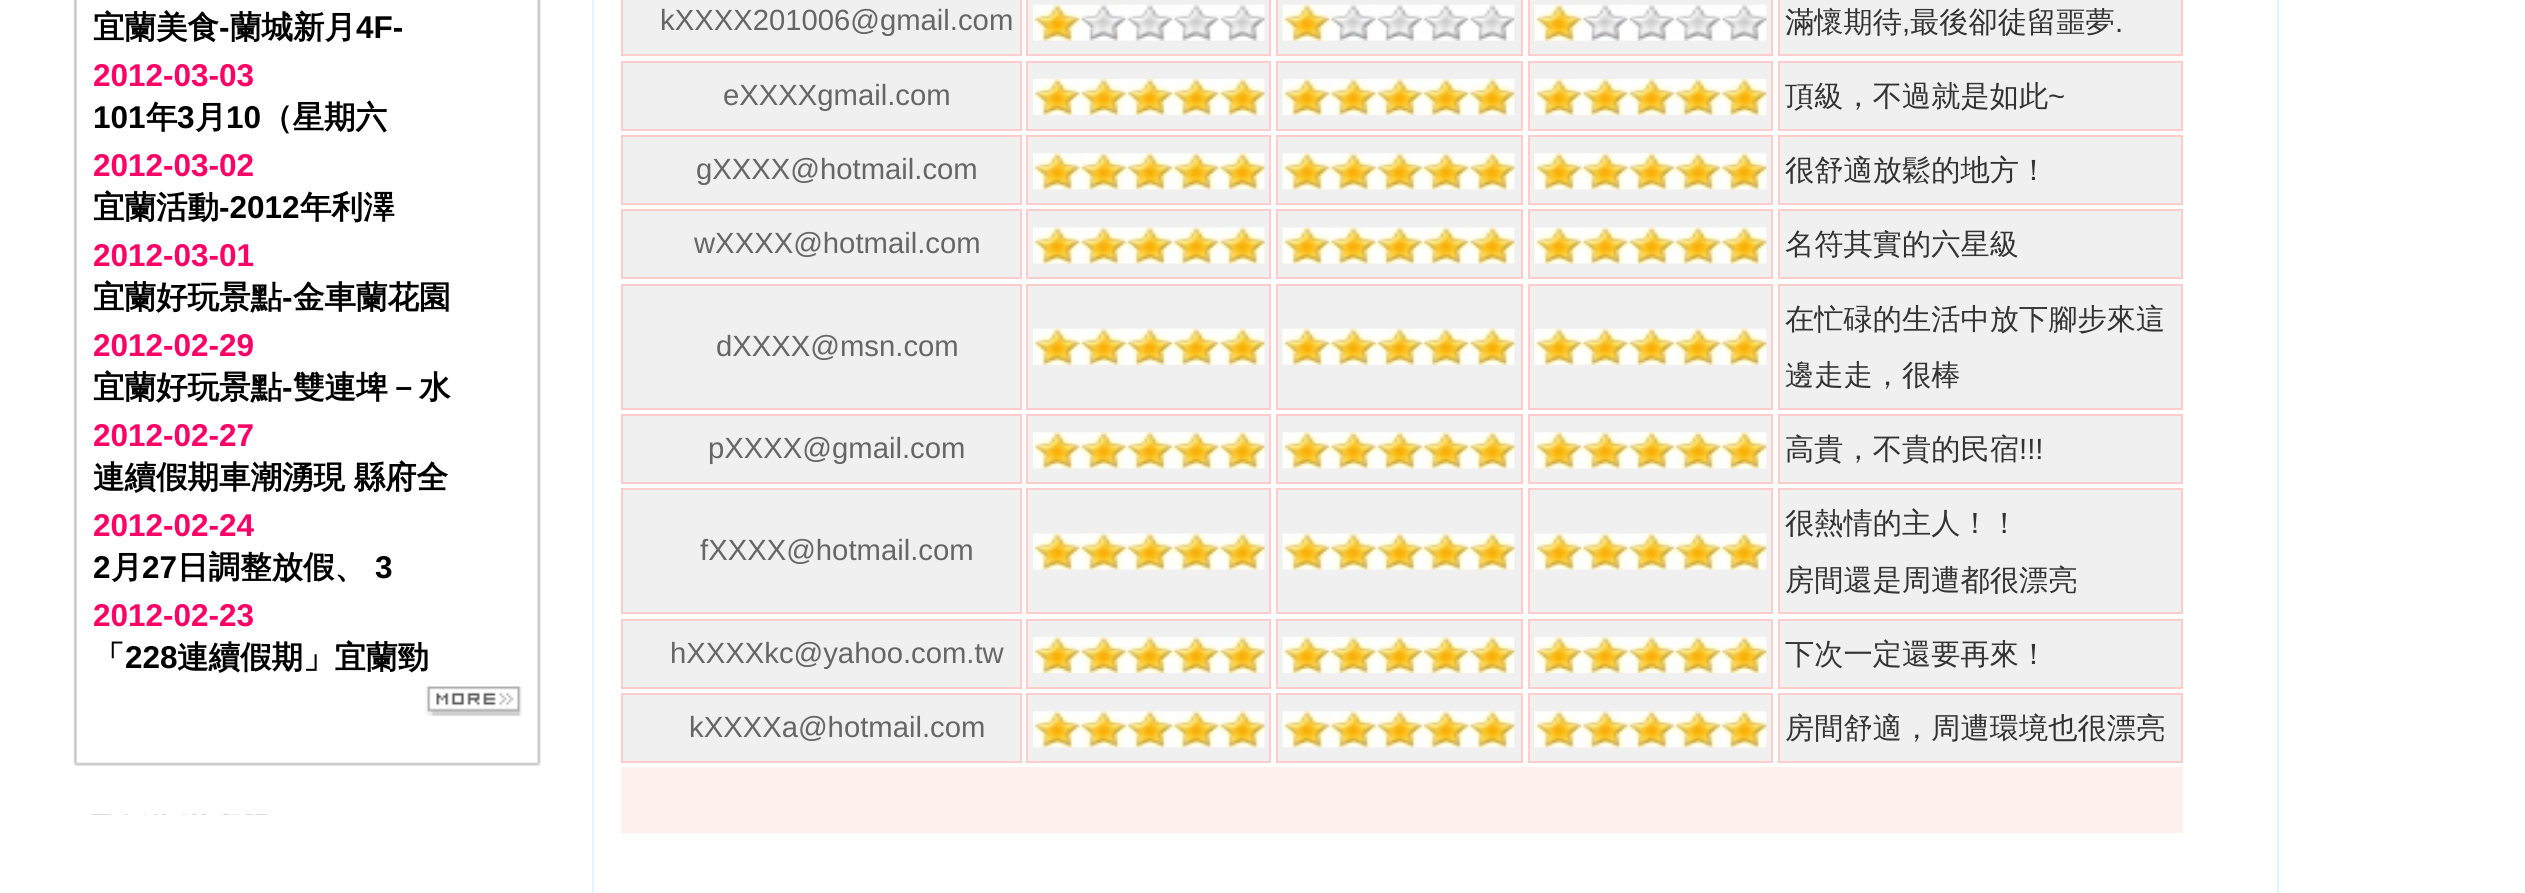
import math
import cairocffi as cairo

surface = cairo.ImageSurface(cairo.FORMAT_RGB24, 2525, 893)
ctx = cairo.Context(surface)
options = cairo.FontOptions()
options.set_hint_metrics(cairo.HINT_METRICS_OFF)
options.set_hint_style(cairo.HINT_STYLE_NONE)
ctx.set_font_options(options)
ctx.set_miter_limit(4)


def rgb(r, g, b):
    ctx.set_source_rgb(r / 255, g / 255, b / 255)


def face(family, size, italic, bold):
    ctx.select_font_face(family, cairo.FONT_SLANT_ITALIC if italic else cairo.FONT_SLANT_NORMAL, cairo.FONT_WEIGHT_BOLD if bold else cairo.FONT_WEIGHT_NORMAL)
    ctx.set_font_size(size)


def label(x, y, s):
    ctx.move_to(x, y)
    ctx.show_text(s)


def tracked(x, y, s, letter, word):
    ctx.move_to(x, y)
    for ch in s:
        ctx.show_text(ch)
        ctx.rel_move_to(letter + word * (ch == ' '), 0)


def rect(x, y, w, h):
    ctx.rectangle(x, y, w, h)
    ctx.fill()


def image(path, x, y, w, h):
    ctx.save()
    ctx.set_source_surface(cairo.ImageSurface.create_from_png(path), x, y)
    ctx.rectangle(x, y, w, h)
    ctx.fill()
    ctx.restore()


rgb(255, 255, 255)
ctx.paint()
image('image0.png', 73, 0, 468, 815)
face('WenQuanYi Zen Hei', 31.5, 0, 1)
rgb(0, 0, 0)
label(93, 38, '宜蘭美食')
face('Liberation Sans', 31.5, 0, 1)
label(219, 38, '-')
face('WenQuanYi Zen Hei', 31.5, 0, 1)
label(230, 38, '蘭城新月')
face('Liberation Sans', 31.5, 0, 1)
label(356, 38, '4F-')
rgb(255, 0, 102)
label(93, 86, '2012-03-03')
rgb(0, 0, 0)
label(93, 128, '101')
face('WenQuanYi Zen Hei', 31.5, 0, 1)
label(146, 128, '年')
face('Liberation Sans', 31.5, 0, 1)
label(177, 128, '3')
face('WenQuanYi Zen Hei', 31.5, 0, 1)
label(195, 128, '月')
face('Liberation Sans', 31.5, 0, 1)
label(226, 128, '10')
face('WenQuanYi Zen Hei', 31.5, 0, 1)
label(261, 128, '（星期六')
face('Liberation Sans', 31.5, 0, 1)
rgb(255, 0, 102)
label(93, 176, '2012-03-02')
face('WenQuanYi Zen Hei', 31.5, 0, 1)
rgb(0, 0, 0)
label(93, 218, '宜蘭活動')
face('Liberation Sans', 31.5, 0, 1)
label(219, 218, '-2012')
face('WenQuanYi Zen Hei', 31.5, 0, 1)
label(300, 218, '年利澤')
face('Liberation Sans', 31.5, 0, 1)
rgb(255, 0, 102)
label(93, 266, '2012-03-01')
face('WenQuanYi Zen Hei', 31.5, 0, 1)
rgb(0, 0, 0)
label(93, 308, '宜蘭好玩景點')
face('Liberation Sans', 31.5, 0, 1)
label(282, 308, '-')
face('WenQuanYi Zen Hei', 31.5, 0, 1)
label(293, 308, '金車蘭花園')
face('Liberation Sans', 31.5, 0, 1)
rgb(255, 0, 102)
label(93, 356, '2012-02-29')
face('WenQuanYi Zen Hei', 31.5, 0, 1)
rgb(0, 0, 0)
label(93, 398, '宜蘭好玩景點')
face('Liberation Sans', 31.5, 0, 1)
label(282, 398, '-')
face('WenQuanYi Zen Hei', 31.5, 0, 1)
label(293, 398, '雙連埤－水')
face('Liberation Sans', 31.5, 0, 1)
rgb(255, 0, 102)
label(93, 446, '2012-02-27')
face('WenQuanYi Zen Hei', 31.5, 0, 1)
rgb(0, 0, 0)
tracked(93, 488, '連續假期車潮湧現 縣府全', 0, -1)
face('Liberation Sans', 31.5, 0, 1)
rgb(255, 0, 102)
label(93, 536, '2012-02-24')
rgb(0, 0, 0)
label(93, 578, '2')
face('WenQuanYi Zen Hei', 31.5, 0, 1)
label(111, 578, '月')
face('Liberation Sans', 31.5, 0, 1)
label(142, 578, '27')
face('WenQuanYi Zen Hei', 31.5, 0, 1)
label(177, 578, '日調整放假、')
face('Liberation Sans', 31.5, 0, 1)
label(375, 578, '3')
rgb(255, 0, 102)
label(93, 626, '2012-02-23')
face('WenQuanYi Zen Hei', 31.5, 0, 1)
rgb(0, 0, 0)
label(93, 668, '「')
face('Liberation Sans', 31.5, 0, 1)
label(125, 668, '228')
face('WenQuanYi Zen Hei', 31.5, 0, 1)
label(177, 668, '連續假期」宜蘭勁')
image('image1.png', 425, 686, 97, 30)
ctx.rectangle(593, -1, 1685, 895)
rgb(219, 249, 255)
ctx.stroke()
rgb(240, 240, 240)
ctx.rectangle(622, -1, 399, 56)
ctx.fill_preserve()
rgb(255, 204, 204)
ctx.stroke()
face('Liberation Sans', 29.25, 0, 0)
rgb(102, 102, 102)
label(660, 30, 'kXXXX201006@gmail.com')
rgb(240, 240, 240)
ctx.rectangle(1027, -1, 243, 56)
ctx.fill_preserve()
rgb(255, 204, 204)
ctx.stroke()
image('image2.png', 1033, 4, 232, 37)
rgb(240, 240, 240)
ctx.rectangle(1277, -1, 245, 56)
ctx.fill_preserve()
rgb(255, 204, 204)
ctx.stroke()
image('image3.png', 1282, 4, 233, 37)
rgb(240, 240, 240)
ctx.rectangle(1529, -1, 243, 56)
ctx.fill_preserve()
rgb(255, 204, 204)
ctx.stroke()
image('image3.png', 1534, 4, 233, 37)
rgb(240, 240, 240)
ctx.rectangle(1779, -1, 403, 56)
ctx.fill_preserve()
rgb(255, 204, 204)
ctx.stroke()
face('WenQuanYi Zen Hei Medium', 29.25, 0, 0)
rgb(51, 51, 51)
label(1785, 32, '滿懷期待')
face('Liberation Sans', 29.25, 0, 0)
label(1902, 32, ',')
face('WenQuanYi Zen Hei Medium', 29.25, 0, 0)
label(1910, 32, '最後卻徒留噩夢')
face('Liberation Sans', 29.25, 0, 0)
label(2115, 32, '.')
rgb(240, 240, 240)
ctx.rectangle(622, 62, 399, 68)
ctx.fill_preserve()
rgb(255, 204, 204)
ctx.stroke()
rgb(102, 102, 102)
label(723, 105, 'eXXXXgmail.com')
rgb(240, 240, 240)
ctx.rectangle(1027, 62, 243, 68)
ctx.fill_preserve()
rgb(255, 204, 204)
ctx.stroke()
image('image4.png', 1033, 79, 232, 36)
rgb(240, 240, 240)
ctx.rectangle(1277, 62, 245, 68)
ctx.fill_preserve()
rgb(255, 204, 204)
ctx.stroke()
image('image5.png', 1282, 79, 233, 36)
rgb(240, 240, 240)
ctx.rectangle(1529, 62, 243, 68)
ctx.fill_preserve()
rgb(255, 204, 204)
ctx.stroke()
image('image5.png', 1534, 79, 233, 36)
rgb(240, 240, 240)
ctx.rectangle(1779, 62, 403, 68)
ctx.fill_preserve()
rgb(255, 204, 204)
ctx.stroke()
face('WenQuanYi Zen Hei Medium', 29.25, 0, 0)
rgb(51, 51, 51)
label(1785, 106, '頂級，不過就是如此')
face('Liberation Sans', 29.25, 0, 0)
label(2048, 106, '~')
rgb(240, 240, 240)
ctx.rectangle(622, 136, 399, 68)
ctx.fill_preserve()
rgb(255, 204, 204)
ctx.stroke()
rgb(102, 102, 102)
label(696, 179, 'gXXXX@hotmail.com')
rgb(240, 240, 240)
ctx.rectangle(1027, 136, 243, 68)
ctx.fill_preserve()
rgb(255, 204, 204)
ctx.stroke()
image('image6.png', 1033, 153, 232, 37)
rgb(240, 240, 240)
ctx.rectangle(1277, 136, 245, 68)
ctx.fill_preserve()
rgb(255, 204, 204)
ctx.stroke()
image('image7.png', 1282, 153, 233, 37)
rgb(240, 240, 240)
ctx.rectangle(1529, 136, 243, 68)
ctx.fill_preserve()
rgb(255, 204, 204)
ctx.stroke()
image('image7.png', 1534, 153, 233, 37)
rgb(240, 240, 240)
ctx.rectangle(1779, 136, 403, 68)
ctx.fill_preserve()
rgb(255, 204, 204)
ctx.stroke()
face('WenQuanYi Zen Hei Medium', 29.25, 0, 0)
rgb(51, 51, 51)
label(1785, 180, '很舒適放鬆的地方！')
rgb(240, 240, 240)
ctx.rectangle(622, 210, 399, 68)
ctx.fill_preserve()
rgb(255, 204, 204)
ctx.stroke()
face('Liberation Sans', 29.25, 0, 0)
rgb(102, 102, 102)
label(694, 253, 'wXXXX@hotmail.com')
rgb(240, 240, 240)
ctx.rectangle(1027, 210, 243, 68)
ctx.fill_preserve()
rgb(255, 204, 204)
ctx.stroke()
image('image8.png', 1033, 227, 232, 37)
rgb(240, 240, 240)
ctx.rectangle(1277, 210, 245, 68)
ctx.fill_preserve()
rgb(255, 204, 204)
ctx.stroke()
image('image9.png', 1282, 227, 233, 37)
rgb(240, 240, 240)
ctx.rectangle(1529, 210, 243, 68)
ctx.fill_preserve()
rgb(255, 204, 204)
ctx.stroke()
image('image9.png', 1534, 227, 233, 37)
rgb(240, 240, 240)
ctx.rectangle(1779, 210, 403, 68)
ctx.fill_preserve()
rgb(255, 204, 204)
ctx.stroke()
face('WenQuanYi Zen Hei Medium', 29.25, 0, 0)
rgb(51, 51, 51)
label(1785, 254, '名符其實的六星級')
rgb(240, 240, 240)
ctx.rectangle(622, 285, 399, 124)
ctx.fill_preserve()
rgb(255, 204, 204)
ctx.stroke()
face('Liberation Sans', 29.25, 0, 0)
rgb(102, 102, 102)
label(716, 356, 'dXXXX@msn.com')
rgb(240, 240, 240)
ctx.rectangle(1027, 285, 243, 124)
ctx.fill_preserve()
rgb(255, 204, 204)
ctx.stroke()
image('image10.png', 1033, 328, 232, 37)
rgb(240, 240, 240)
ctx.rectangle(1277, 285, 245, 124)
ctx.fill_preserve()
rgb(255, 204, 204)
ctx.stroke()
image('image11.png', 1282, 328, 233, 37)
rgb(240, 240, 240)
ctx.rectangle(1529, 285, 243, 124)
ctx.fill_preserve()
rgb(255, 204, 204)
ctx.stroke()
image('image11.png', 1534, 328, 233, 37)
rgb(240, 240, 240)
ctx.rectangle(1779, 285, 403, 124)
ctx.fill_preserve()
rgb(255, 204, 204)
ctx.stroke()
face('WenQuanYi Zen Hei Medium', 29.25, 0, 0)
rgb(51, 51, 51)
label(1785, 329, '在忙碌的生活中放下腳步來這')
label(1785, 385, '邊走走，很棒')
rgb(240, 240, 240)
ctx.rectangle(622, 415, 399, 68)
ctx.fill_preserve()
rgb(255, 204, 204)
ctx.stroke()
face('Liberation Sans', 29.25, 0, 0)
rgb(102, 102, 102)
label(708, 458, 'pXXXX@gmail.com')
rgb(240, 240, 240)
ctx.rectangle(1027, 415, 243, 68)
ctx.fill_preserve()
rgb(255, 204, 204)
ctx.stroke()
image('image6.png', 1033, 432, 232, 37)
rgb(240, 240, 240)
ctx.rectangle(1277, 415, 245, 68)
ctx.fill_preserve()
rgb(255, 204, 204)
ctx.stroke()
image('image7.png', 1282, 432, 233, 37)
rgb(240, 240, 240)
ctx.rectangle(1529, 415, 243, 68)
ctx.fill_preserve()
rgb(255, 204, 204)
ctx.stroke()
image('image7.png', 1534, 432, 233, 37)
rgb(240, 240, 240)
ctx.rectangle(1779, 415, 403, 68)
ctx.fill_preserve()
rgb(255, 204, 204)
ctx.stroke()
face('WenQuanYi Zen Hei Medium', 29.25, 0, 0)
rgb(51, 51, 51)
label(1785, 459, '高貴，不貴的民宿')
face('Liberation Sans', 29.25, 0, 0)
label(2019, 459, '!!!')
rgb(240, 240, 240)
ctx.rectangle(622, 489, 399, 124)
ctx.fill_preserve()
rgb(255, 204, 204)
ctx.stroke()
rgb(102, 102, 102)
label(700, 560, 'fXXXX@hotmail.com')
rgb(240, 240, 240)
ctx.rectangle(1027, 489, 243, 124)
ctx.fill_preserve()
rgb(255, 204, 204)
ctx.stroke()
image('image12.png', 1033, 533, 232, 37)
rgb(240, 240, 240)
ctx.rectangle(1277, 489, 245, 124)
ctx.fill_preserve()
rgb(255, 204, 204)
ctx.stroke()
image('image13.png', 1282, 533, 233, 37)
rgb(240, 240, 240)
ctx.rectangle(1529, 489, 243, 124)
ctx.fill_preserve()
rgb(255, 204, 204)
ctx.stroke()
image('image13.png', 1534, 533, 233, 37)
rgb(240, 240, 240)
ctx.rectangle(1779, 489, 403, 124)
ctx.fill_preserve()
rgb(255, 204, 204)
ctx.stroke()
face('WenQuanYi Zen Hei Medium', 29.25, 0, 0)
rgb(51, 51, 51)
label(1785, 533, '很熱情的主人！！')
label(1785, 590, '房間還是周遭都很漂亮')
rgb(240, 240, 240)
ctx.rectangle(622, 620, 399, 68)
ctx.fill_preserve()
rgb(255, 204, 204)
ctx.stroke()
face('Liberation Sans', 29.25, 0, 0)
rgb(102, 102, 102)
label(670, 663, 'hXXXXkc@yahoo.com.tw')
rgb(240, 240, 240)
ctx.rectangle(1027, 620, 243, 68)
ctx.fill_preserve()
rgb(255, 204, 204)
ctx.stroke()
image('image14.png', 1033, 637, 232, 36)
rgb(240, 240, 240)
ctx.rectangle(1277, 620, 245, 68)
ctx.fill_preserve()
rgb(255, 204, 204)
ctx.stroke()
image('image15.png', 1282, 637, 233, 36)
rgb(240, 240, 240)
ctx.rectangle(1529, 620, 243, 68)
ctx.fill_preserve()
rgb(255, 204, 204)
ctx.stroke()
image('image15.png', 1534, 637, 233, 36)
rgb(240, 240, 240)
ctx.rectangle(1779, 620, 403, 68)
ctx.fill_preserve()
rgb(255, 204, 204)
ctx.stroke()
face('WenQuanYi Zen Hei Medium', 29.25, 0, 0)
rgb(51, 51, 51)
label(1785, 664, '下次一定還要再來！')
rgb(240, 240, 240)
ctx.rectangle(622, 694, 399, 68)
ctx.fill_preserve()
rgb(255, 204, 204)
ctx.stroke()
face('Liberation Sans', 29.25, 0, 0)
rgb(102, 102, 102)
label(689, 737, 'kXXXXa@hotmail.com')
rgb(240, 240, 240)
ctx.rectangle(1027, 694, 243, 68)
ctx.fill_preserve()
rgb(255, 204, 204)
ctx.stroke()
image('image6.png', 1033, 711, 232, 37)
rgb(240, 240, 240)
ctx.rectangle(1277, 694, 245, 68)
ctx.fill_preserve()
rgb(255, 204, 204)
ctx.stroke()
image('image7.png', 1282, 711, 233, 37)
rgb(240, 240, 240)
ctx.rectangle(1529, 694, 243, 68)
ctx.fill_preserve()
rgb(255, 204, 204)
ctx.stroke()
image('image7.png', 1534, 711, 233, 37)
rgb(240, 240, 240)
ctx.rectangle(1779, 694, 403, 68)
ctx.fill_preserve()
rgb(255, 204, 204)
ctx.stroke()
face('WenQuanYi Zen Hei Medium', 29.25, 0, 0)
rgb(51, 51, 51)
label(1785, 738, '房間舒適，周遭環境也很漂亮')
rgb(254, 240, 237)
rect(621, 767, 1562, 66)
surface.write_to_png('render.png')
